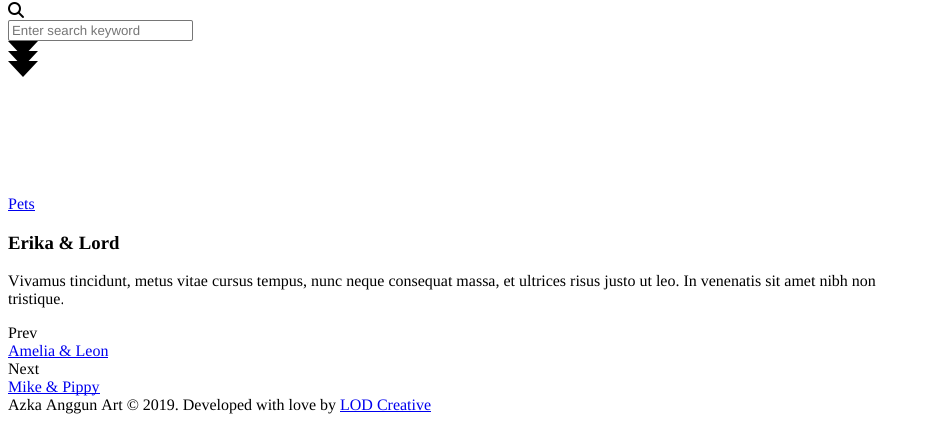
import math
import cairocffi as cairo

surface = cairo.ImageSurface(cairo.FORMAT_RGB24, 937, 435)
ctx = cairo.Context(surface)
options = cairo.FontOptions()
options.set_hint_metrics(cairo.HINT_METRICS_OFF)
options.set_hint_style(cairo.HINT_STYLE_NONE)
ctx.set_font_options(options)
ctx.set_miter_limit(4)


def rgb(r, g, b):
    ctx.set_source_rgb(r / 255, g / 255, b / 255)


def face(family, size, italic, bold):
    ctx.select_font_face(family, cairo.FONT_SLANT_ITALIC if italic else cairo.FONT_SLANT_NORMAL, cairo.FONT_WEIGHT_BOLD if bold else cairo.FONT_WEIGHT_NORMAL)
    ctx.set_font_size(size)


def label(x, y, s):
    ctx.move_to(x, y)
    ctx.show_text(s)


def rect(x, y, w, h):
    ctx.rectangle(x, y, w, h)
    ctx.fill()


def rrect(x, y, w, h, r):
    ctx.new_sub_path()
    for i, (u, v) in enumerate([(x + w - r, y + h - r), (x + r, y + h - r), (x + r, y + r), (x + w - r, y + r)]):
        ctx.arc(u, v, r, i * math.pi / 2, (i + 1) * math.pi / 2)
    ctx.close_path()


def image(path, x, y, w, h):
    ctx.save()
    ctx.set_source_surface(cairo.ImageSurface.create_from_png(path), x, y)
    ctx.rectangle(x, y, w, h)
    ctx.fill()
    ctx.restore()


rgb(255, 255, 255)
ctx.paint()
image('image0.png', 8, 2, 16, 16)
rrect(8.5, 20.5, 184, 20, 1.5)
rgb(118, 118, 118)
ctx.set_line_width(1)
ctx.stroke()
face('Liberation Sans', 13.25, 0, 0)
rgb(117, 117, 117)
label(12, 35, 'Enter search keyword')
rgb(0, 0, 0)
ctx.new_path()
ctx.move_to(8, 41)
ctx.line_to(23, 57)
ctx.line_to(38, 41)
ctx.fill()
ctx.new_path()
ctx.move_to(8, 51)
ctx.line_to(23, 67)
ctx.line_to(38, 51)
ctx.fill()
ctx.new_path()
ctx.move_to(8, 61)
ctx.line_to(23, 77)
ctx.line_to(38, 61)
ctx.fill()
face('Liberation Serif', 16, 0, 0)
rgb(0, 0, 238)
label(8, 209, 'Pets')
rect(8, 210, 27, 1)
face('Liberation Serif', 18.75, 0, 1)
rgb(0, 0, 0)
label(8, 249, 'Erika & Lord')
face('Liberation Serif', 16, 0, 0)
label(8, 286, 'Vivamus tincidunt, metus vitae cursus tempus, nunc neque consequat massa, et ultrices risus justo ut leo. In venenatis sit amet nibh non')
label(8, 304, 'tristique.')
label(8, 338, 'Prev')
rgb(0, 0, 238)
label(8, 356, 'Amelia & Leon')
rect(8, 357, 100, 1)
rgb(0, 0, 0)
label(8, 374, 'Next')
rgb(0, 0, 238)
rect(8, 393, 92, 1)
label(8, 392, 'Mike & Pippy')
rgb(0, 0, 0)
label(8, 410, 'Azka Anggun Art © 2019. Developed with love by')
rgb(0, 0, 238)
label(340, 410, 'LOD Creative')
rect(340, 411, 91, 1)
surface.write_to_png('render.png')
